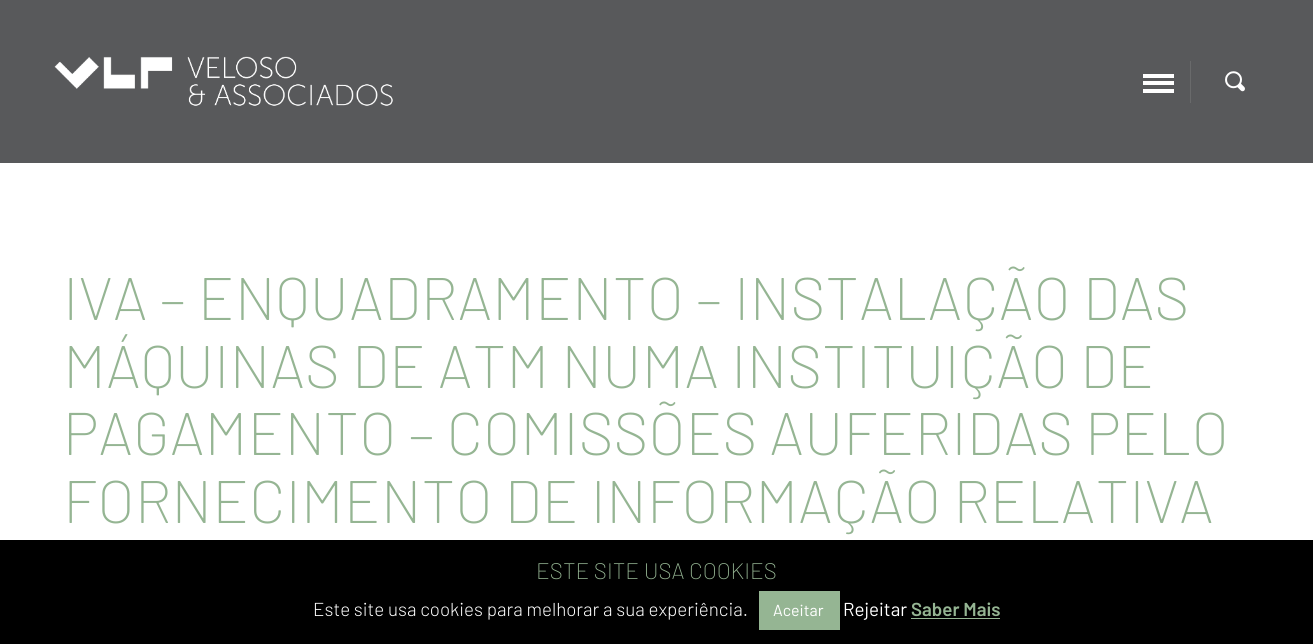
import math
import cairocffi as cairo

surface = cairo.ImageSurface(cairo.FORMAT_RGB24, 1313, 644)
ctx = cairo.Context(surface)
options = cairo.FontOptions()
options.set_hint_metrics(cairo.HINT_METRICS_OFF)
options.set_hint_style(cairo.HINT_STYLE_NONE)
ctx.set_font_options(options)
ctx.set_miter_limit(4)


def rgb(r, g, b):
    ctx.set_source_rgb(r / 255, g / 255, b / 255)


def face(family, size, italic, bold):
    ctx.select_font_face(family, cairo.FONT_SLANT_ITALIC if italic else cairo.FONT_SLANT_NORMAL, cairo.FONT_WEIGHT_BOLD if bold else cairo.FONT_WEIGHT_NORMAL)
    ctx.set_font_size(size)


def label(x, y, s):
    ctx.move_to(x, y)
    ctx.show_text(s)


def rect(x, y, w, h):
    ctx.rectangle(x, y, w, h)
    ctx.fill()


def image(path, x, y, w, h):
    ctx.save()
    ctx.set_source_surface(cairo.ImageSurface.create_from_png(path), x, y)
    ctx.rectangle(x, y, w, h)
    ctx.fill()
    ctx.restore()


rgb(255, 255, 255)
ctx.paint()
rgb(88, 89, 91)
rect(0, 0, 1313, 163)
image('image0.png', 54, 56, 339, 50)
rgb(255, 255, 255)
rect(1143, 81, 31, 4)
rect(1143, 74, 31, 4)
rect(1143, 89, 31, 4)
rgb(105, 106, 107)
rect(1190, 61, 1, 42)
image('image1.png', 1225, 71, 20, 21)
face('Barlow ExtraLight', 60, 0, 0)
rgb(149, 181, 147)
label(63, 320, 'IVA – ENQUADRAMENTO – INSTALAÇÃO DAS')
label(63, 388, 'MÁQUINAS DE ATM NUMA INSTITUIÇÃO DE')
label(63, 455, 'PAGAMENTO – COMISSÕES AUFERIDAS PELO')
label(63, 523, 'FORNECIMENTO DE INFORMAÇÃO RELATIVA')
rgb(0, 0, 0)
rect(0, 540, 1313, 104)
face('Barlow ExtraLight', 22.5, 0, 0)
rgb(149, 181, 147)
label(536, 579, 'ESTE SITE USA COOKIES')
face('Barlow Light', 18.75, 0, 0)
rgb(255, 255, 255)
label(313, 616, 'Este site usa cookies para melhorar a sua experiência.')
rgb(149, 181, 147)
rect(759, 591, 81, 39)
face('Barlow', 16, 0, 0)
rgb(255, 255, 255)
label(773, 616, 'Aceitar')
face('Barlow', 18.75, 0, 0)
label(843, 616, 'Rejeitar')
face('Barlow SemiBold', 18.75, 0, 0)
rgb(149, 181, 147)
label(911, 616, 'Saber Mais')
rect(911, 618, 89, 1)
surface.write_to_png('render.png')
